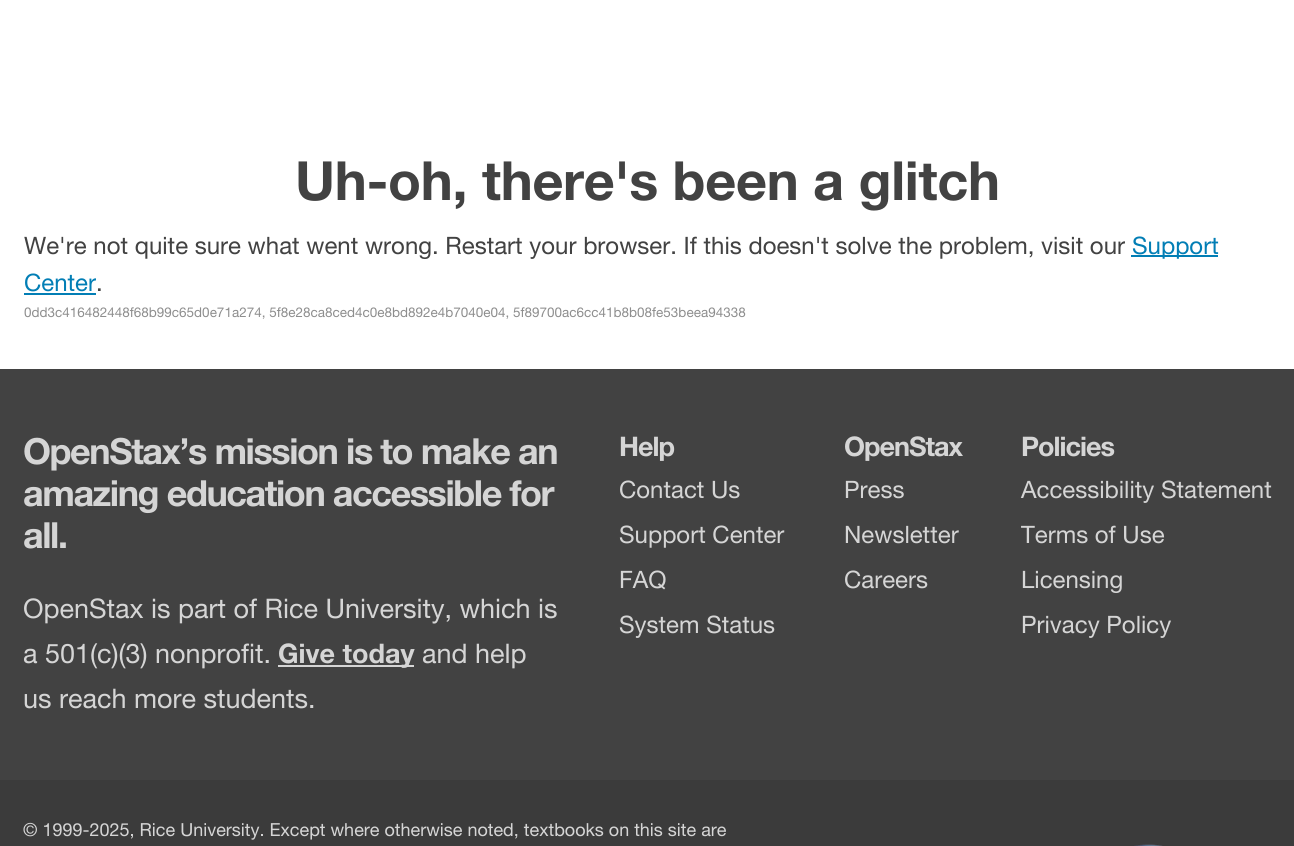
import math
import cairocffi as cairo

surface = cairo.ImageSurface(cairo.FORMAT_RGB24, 1294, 846)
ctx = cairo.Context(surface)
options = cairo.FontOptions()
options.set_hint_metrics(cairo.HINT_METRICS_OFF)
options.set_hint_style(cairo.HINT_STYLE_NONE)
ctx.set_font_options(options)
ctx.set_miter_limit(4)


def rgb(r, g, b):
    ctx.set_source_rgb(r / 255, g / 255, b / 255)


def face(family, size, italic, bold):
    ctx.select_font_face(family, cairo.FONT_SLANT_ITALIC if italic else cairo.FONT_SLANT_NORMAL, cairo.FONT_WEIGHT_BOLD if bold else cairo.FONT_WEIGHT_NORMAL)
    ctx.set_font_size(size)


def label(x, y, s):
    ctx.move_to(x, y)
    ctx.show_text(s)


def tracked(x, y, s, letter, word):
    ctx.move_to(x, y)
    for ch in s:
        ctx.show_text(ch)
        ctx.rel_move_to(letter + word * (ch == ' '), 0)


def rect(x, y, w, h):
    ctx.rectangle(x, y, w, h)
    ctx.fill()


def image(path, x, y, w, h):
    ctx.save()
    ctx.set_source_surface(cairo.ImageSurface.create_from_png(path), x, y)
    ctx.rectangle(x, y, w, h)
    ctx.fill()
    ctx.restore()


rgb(255, 255, 255)
ctx.paint()
face('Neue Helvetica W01', 54, 0, 1)
rgb(66, 66, 66)
tracked(295, 200, 'Uh-oh, there\'s been a glitch', -0.3, 0)
face('Neue Helvetica W01', 24, 0, 0)
label(24, 254, 'We\'re not quite sure what went wrong. Restart your browser. If this doesn\'t solve the problem, visit our')
rgb(2, 126, 181)
rect(1131, 255, 87, 2)
label(1132, 254, 'Support')
label(24, 291, 'Center')
rect(24, 293, 72, 2)
rgb(66, 66, 66)
label(96, 291, '.')
face('Neue Helvetica W01', 13.5, 0, 0)
rgb(142, 142, 142)
label(24, 317, '0dd3c416482448f68b99c65d0e71a274, 5f8e28ca8ced4c0e8bd892e4b7040e04, 5f89700ac6cc41b8b08fe53beea94338')
rgb(66, 66, 66)
rect(0, 369, 1294, 411)
face('Neue Helvetica W01', 36, 0, 1)
rgb(213, 213, 213)
tracked(23, 464, 'OpenStax’s mission is to make an', -1.45, 0)
tracked(23, 506, 'amazing education accessible for', -1.45, 0)
tracked(23, 548, 'all.', -1.45, 0)
face('Neue Helvetica W01', 27, 0, 1)
tracked(619, 456, 'Help', -1, 0)
face('Neue Helvetica W01', 24, 0, 0)
label(619, 498, 'Contact Us')
label(619, 543, 'Support Center')
label(619, 588, 'FAQ')
label(619, 633, 'System Status')
face('Neue Helvetica W01', 27, 0, 1)
tracked(844, 456, 'OpenStax', -1, 0)
face('Neue Helvetica W01', 24, 0, 0)
label(844, 498, 'Press')
label(844, 543, 'Newsletter')
label(844, 588, 'Careers')
face('Neue Helvetica W01', 27, 0, 1)
tracked(1021, 456, 'Policies', -1, 0)
face('Neue Helvetica W01', 24, 0, 0)
label(1021, 498, 'Accessibility Statement')
label(1021, 543, 'Terms of Use')
label(1021, 588, 'Licensing')
label(1021, 633, 'Privacy Policy')
face('Neue Helvetica W01', 27, 0, 0)
label(23, 618, 'OpenStax is part of Rice University, which is')
label(23, 663, 'a 501(c)(3) nonprofit.')
rect(278, 665, 136, 2)
face('Neue Helvetica W01', 27, 0, 1)
label(278, 663, 'Give today')
face('Neue Helvetica W01', 27, 0, 0)
label(422, 663, 'and help')
label(23, 708, 'us reach more students.')
rgb(59, 59, 59)
rect(0, 780, 1294, 66)
face('Neue Helvetica W01', 18, 0, 0)
rgb(213, 213, 213)
label(23, 836, '© 1999-2025, Rice University. Except where otherwise noted, textbooks on this site are')
image('image0.png', 1134, 844, 29, 2)
surface.write_to_png('render.png')
